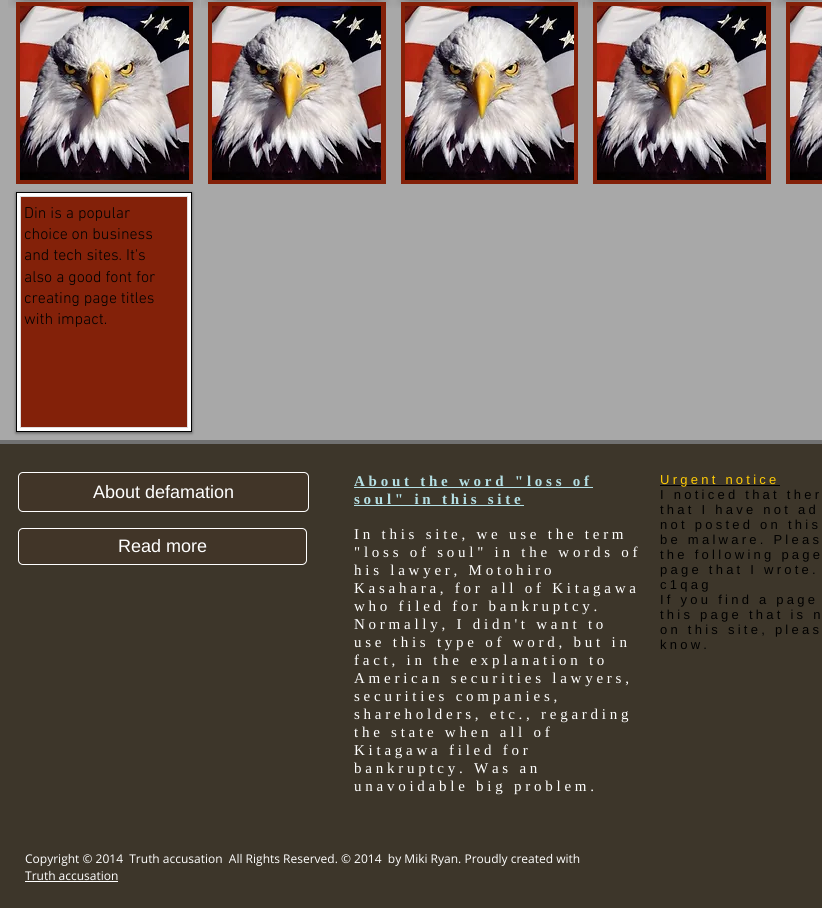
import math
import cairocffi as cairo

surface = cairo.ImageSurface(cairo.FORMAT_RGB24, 822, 908)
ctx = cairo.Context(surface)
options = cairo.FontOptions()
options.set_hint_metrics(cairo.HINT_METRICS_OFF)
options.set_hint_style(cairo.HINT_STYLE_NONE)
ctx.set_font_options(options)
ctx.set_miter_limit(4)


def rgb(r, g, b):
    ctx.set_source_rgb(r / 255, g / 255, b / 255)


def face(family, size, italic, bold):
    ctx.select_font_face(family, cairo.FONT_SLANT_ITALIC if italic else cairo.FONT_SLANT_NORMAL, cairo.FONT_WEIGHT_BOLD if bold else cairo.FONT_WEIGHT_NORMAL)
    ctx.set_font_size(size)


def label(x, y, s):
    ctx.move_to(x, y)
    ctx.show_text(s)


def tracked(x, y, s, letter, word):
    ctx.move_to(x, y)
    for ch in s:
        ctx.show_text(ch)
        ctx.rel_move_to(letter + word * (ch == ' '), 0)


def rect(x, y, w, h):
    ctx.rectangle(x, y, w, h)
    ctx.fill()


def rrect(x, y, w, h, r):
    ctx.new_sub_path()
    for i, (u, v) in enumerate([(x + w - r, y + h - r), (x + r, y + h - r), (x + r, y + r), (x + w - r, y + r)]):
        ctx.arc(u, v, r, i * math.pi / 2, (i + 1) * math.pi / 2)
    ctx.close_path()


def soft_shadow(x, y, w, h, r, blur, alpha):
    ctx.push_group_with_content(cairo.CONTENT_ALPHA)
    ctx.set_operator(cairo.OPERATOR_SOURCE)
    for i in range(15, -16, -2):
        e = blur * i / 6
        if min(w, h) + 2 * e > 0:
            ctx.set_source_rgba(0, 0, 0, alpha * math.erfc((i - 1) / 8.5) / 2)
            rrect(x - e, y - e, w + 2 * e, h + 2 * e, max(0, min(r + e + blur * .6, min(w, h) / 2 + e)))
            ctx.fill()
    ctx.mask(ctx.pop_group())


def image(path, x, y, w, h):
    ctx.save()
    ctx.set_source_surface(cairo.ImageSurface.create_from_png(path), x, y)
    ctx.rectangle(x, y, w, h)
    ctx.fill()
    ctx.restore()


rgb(168, 168, 168)
ctx.paint()
image('image0.png', 8, 0, 60, 8)
image('image1.png', 140, 0, 60, 8)
image('image0.png', 201, 0, 60, 8)
image('image1.png', 333, 0, 60, 8)
image('image0.png', 393, 0, 60, 8)
image('image1.png', 525, 0, 60, 8)
image('image2.png', 582, 0, 60, 8)
image('image3.png', 714, 0, 60, 6)
image('image4.png', 771, 0, 51, 8)
rgb(131, 33, 9)
rect(16, 2, 177, 182)
image('image5.png', 20, 6, 169, 174)
rect(208, 2, 178, 182)
image('image5.png', 212, 6, 169, 174)
rect(401, 2, 177, 182)
image('image5.png', 405, 6, 169, 174)
rect(593, 2, 178, 182)
image('image5.png', 597, 6, 169, 174)
rect(786, 2, 36, 182)
image('image6.png', 790, 6, 32, 174)
rgb(0, 0, 0)
soft_shadow(16, 193, 176, 240, 0, 1.5, 0.5)
rgb(255, 255, 255)
ctx.rectangle(16.5, 192.5, 175, 239)
ctx.fill_preserve()
rgb(0, 0, 0)
ctx.set_line_width(1)
ctx.stroke()
rgb(131, 33, 9)
ctx.rectangle(20.5, 196.5, 167, 231)
ctx.fill_preserve()
rgb(224, 221, 221)
ctx.stroke()
face('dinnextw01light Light', 16, 0, 0)
rgb(0, 0, 0)
label(24, 218, 'Din is a popular')
label(24, 239, 'choice on business')
label(24, 260, 'and tech sites. It\'s')
label(24, 282, 'also a good font for')
label(24, 303, 'creating page titles')
label(24, 324, 'with impact.')
rgb(61, 54, 42)
rect(0, 444, 822, 464)
rgb(113, 113, 113)
rect(0, 440, 822, 4)
rgb(65, 53, 40)
rrect(18.5, 472.5, 290, 39, 4.5)
ctx.fill_preserve()
rgb(255, 255, 255)
ctx.stroke()
face('Liberation Sans', 18, 0, 0)
label(93, 498, 'About defamation')
face('Liberation Serif', 15, 0, 1)
rgb(181, 224, 229)
tracked(354, 486, 'About the word "loss of', 3.75, 0)
rect(354, 487, 239, 1)
tracked(354, 504, 'soul" in this site', 3.75, 0)
rect(354, 505, 170, 1)
face('Liberation Serif', 15, 0, 0)
rgb(255, 255, 255)
tracked(354, 539, 'In this site, we use the term', 3.75, 0)
tracked(354, 557, '"loss of soul" in the words of', 3.75, 0)
tracked(354, 575, 'his lawyer, Motohiro', 3.75, 0)
tracked(354, 593, 'Kasahara, for all of Kitagawa', 3.75, 0)
tracked(354, 611, 'who filed for bankruptcy.', 3.75, 0)
tracked(354, 629, 'Normally, I didn\'t want to', 3.75, 0)
tracked(354, 647, 'use this type of word, but in', 3.75, 0)
tracked(354, 665, 'fact, in the explanation to', 3.75, 0)
tracked(354, 683, 'American securities lawyers,', 3.75, 0)
tracked(354, 701, 'securities companies,', 3.75, 0)
tracked(354, 719, 'shareholders, etc., regarding', 3.75, 0)
tracked(354, 737, 'the state when all of', 3.75, 0)
tracked(354, 755, 'Kitagawa filed for', 3.75, 0)
tracked(354, 773, 'bankruptcy. Was an', 3.75, 0)
tracked(354, 791, 'unavoidable big problem.', 3.75, 0)
rgb(0, 0, 0)
rect(660, 485, 120, 1)
face('Liberation Sans', 13, 0, 0)
rgb(255, 203, 5)
tracked(660, 484, 'Urgent notice', 3.25, 0)
rgb(0, 0, 0)
tracked(660, 499, 'I noticed that ther', 3.25, 0)
tracked(660, 514, 'that I have not ad', 3.25, 0)
tracked(660, 529, 'not posted on this', 3.25, 0)
tracked(660, 544, 'be malware. Pleas', 3.25, 0)
tracked(660, 559, 'the following page', 3.25, 0)
tracked(660, 574, 'page that I wrote.', 3.25, 0)
tracked(660, 589, 'c1qag', 3.25, 0)
tracked(660, 604, 'If you find a page', 3.25, 0)
tracked(660, 619, 'this page that is n', 3.25, 0)
tracked(660, 634, 'on this site, pleas', 3.25, 0)
tracked(660, 649, 'know.', 3.25, 0)
rgb(65, 53, 40)
rrect(18.5, 528.5, 288, 36, 4.5)
ctx.fill_preserve()
rgb(255, 255, 255)
ctx.stroke()
face('Liberation Sans', 18, 0, 0)
label(118, 552, 'Read more')
face('Open Sans', 12, 0, 0)
label(25, 863, 'Copyright © 2014  Truth accusation  All Rights Reserved. © 2014  by Miki Ryan. Proudly created with')
label(25, 880, 'Truth accusation')
rect(25, 881, 93, 1)
surface.write_to_png('render.png')
